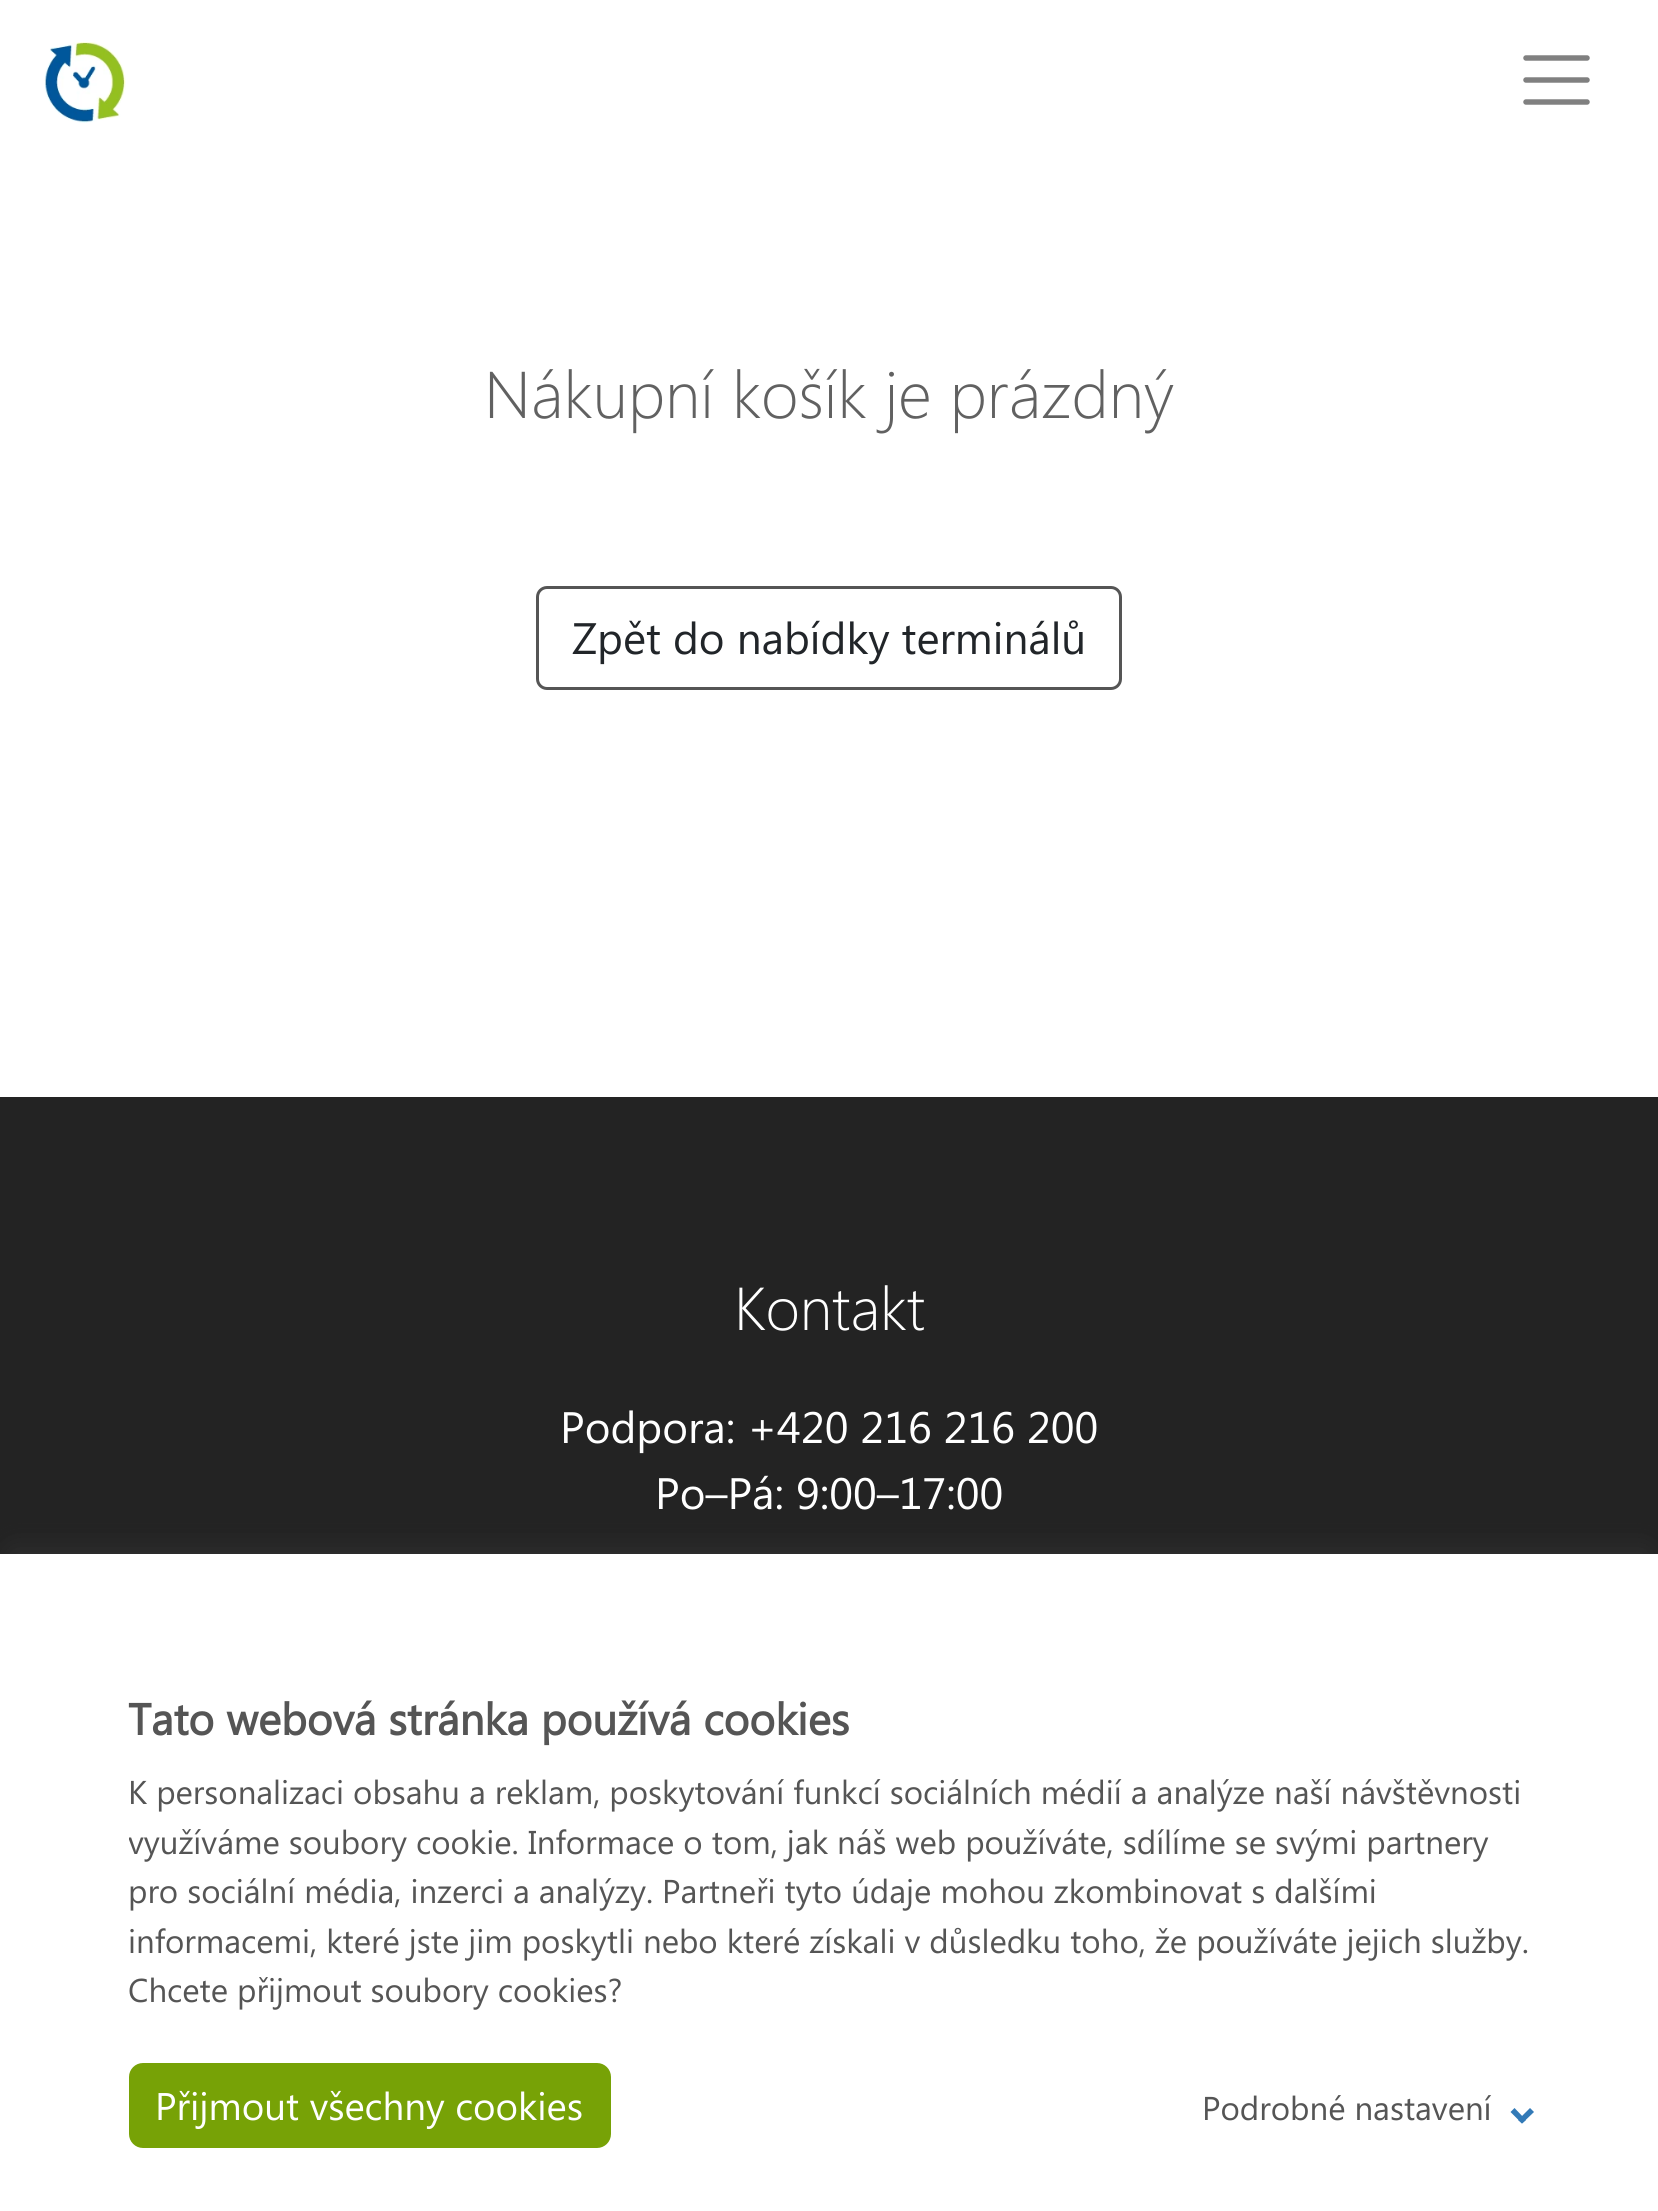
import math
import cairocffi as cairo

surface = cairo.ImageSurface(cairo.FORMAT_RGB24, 1658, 2211)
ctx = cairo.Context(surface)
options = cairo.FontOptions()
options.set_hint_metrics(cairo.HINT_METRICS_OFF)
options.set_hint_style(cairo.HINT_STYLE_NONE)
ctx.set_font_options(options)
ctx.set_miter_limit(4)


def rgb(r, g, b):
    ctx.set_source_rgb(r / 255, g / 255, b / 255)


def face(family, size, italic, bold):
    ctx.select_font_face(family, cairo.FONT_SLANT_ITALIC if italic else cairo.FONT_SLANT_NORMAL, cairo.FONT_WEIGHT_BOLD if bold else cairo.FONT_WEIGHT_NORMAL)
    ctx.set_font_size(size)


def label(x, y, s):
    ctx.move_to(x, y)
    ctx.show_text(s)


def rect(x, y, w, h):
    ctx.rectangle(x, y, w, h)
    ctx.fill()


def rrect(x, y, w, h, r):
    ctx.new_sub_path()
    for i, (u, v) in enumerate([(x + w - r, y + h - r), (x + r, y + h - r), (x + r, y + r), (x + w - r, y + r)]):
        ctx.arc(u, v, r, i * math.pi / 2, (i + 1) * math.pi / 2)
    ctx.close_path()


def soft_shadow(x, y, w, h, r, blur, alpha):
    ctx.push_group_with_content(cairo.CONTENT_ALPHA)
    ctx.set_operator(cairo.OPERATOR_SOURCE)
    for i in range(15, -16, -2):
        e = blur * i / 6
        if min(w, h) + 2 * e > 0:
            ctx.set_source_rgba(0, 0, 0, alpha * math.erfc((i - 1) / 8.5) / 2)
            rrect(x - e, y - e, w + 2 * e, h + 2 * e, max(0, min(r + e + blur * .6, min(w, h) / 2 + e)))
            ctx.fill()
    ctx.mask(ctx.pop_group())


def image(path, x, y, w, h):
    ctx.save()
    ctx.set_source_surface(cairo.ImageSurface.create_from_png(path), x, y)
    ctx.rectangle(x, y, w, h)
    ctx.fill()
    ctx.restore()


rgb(35, 35, 35)
ctx.paint()
rgb(255, 255, 255)
rect(0, 0, 1658, 1097)
image('image0.png', 44, 42, 82, 81)
ctx.new_path()
ctx.move_to(1526, 58)
ctx.line_to(1587, 58)
ctx.move_to(1526, 80)
ctx.line_to(1587, 80)
ctx.move_to(1526, 102)
ctx.line_to(1587, 102)
rgb(128, 128, 128)
ctx.set_line_width(5.5)
ctx.set_line_cap(cairo.LINE_CAP_ROUND)
ctx.stroke()
face('Segoe UI Light', 66, 0, 0)
rgb(97, 97, 97)
label(484, 418, 'Nákupní košík je prázdný')
rrect(537.5, 587.5, 583, 101, 9.5)
rgb(85, 85, 85)
ctx.set_line_width(3)
ctx.set_line_cap(cairo.LINE_CAP_BUTT)
ctx.stroke()
face('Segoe', 44, 0, 0)
rgb(33, 37, 41)
label(572, 654, 'Zpět do nabídky terminálů')
face('Segoe UI Light', 60.5, 0, 0)
rgb(255, 255, 255)
label(734, 1330, 'Kontakt')
face('Segoe', 44, 0, 0)
label(560, 1443, 'Podpora: +420 216 216 200')
label(655, 1509, 'Po–Pá: 9:00–17:00')
rgb(51, 51, 51)
soft_shadow(14, 1554, 1631, 630, 0, 14, 1)
rgb(255, 255, 255)
rect(0, 1554, 1658, 657)
face('Segoe', 44, 0, 1)
rgb(85, 85, 85)
label(128, 1735, 'Tato webová stránka používá cookies')
face('Segoe', 33, 0, 0)
label(128, 1804, 'K personalizaci obsahu a reklam, poskytování funkcí sociálních médií a analýze naší návštěvnosti')
ctx.save()
ctx.rectangle(129, 1766, 1403, 247)
ctx.clip()
label(128, 1854, 'využíváme soubory cookie.')
ctx.restore()
label(528, 1854, 'Informace o tom, jak náš web používáte, sdílíme se svými partnery')
label(128, 1903, 'pro sociální média, inzerci a analýzy. Partneři tyto údaje mohou zkombinovat s dalšími')
label(128, 1953, 'informacemi, které jste jim poskytli nebo které získali v důsledku toho, že používáte jejich služby.')
label(128, 2002, 'Chcete přijmout soubory cookies?')
rgb(119, 162, 6)
rrect(129, 2063, 482, 85, 14)
ctx.fill()
face('Segoe', 38.5, 0, 0)
rgb(255, 255, 255)
label(155, 2120, 'Přijmout všechny cookies')
face('Segoe', 33, 0, 0)
rgb(85, 85, 85)
label(1202, 2120, 'Podrobné nastavení')
rgb(51, 122, 183)
ctx.new_path()
ctx.move_to(1530, 2108)
ctx.line_to(1534, 2112)
ctx.line_to(1522, 2123.5)
ctx.line_to(1518, 2120)
ctx.close_path()
ctx.fill()
ctx.new_path()
ctx.move_to(1514.5, 2108)
ctx.line_to(1526, 2120)
ctx.line_to(1522, 2123.5)
ctx.line_to(1510.5, 2112)
ctx.close_path()
ctx.fill()
surface.write_to_png('render.png')
